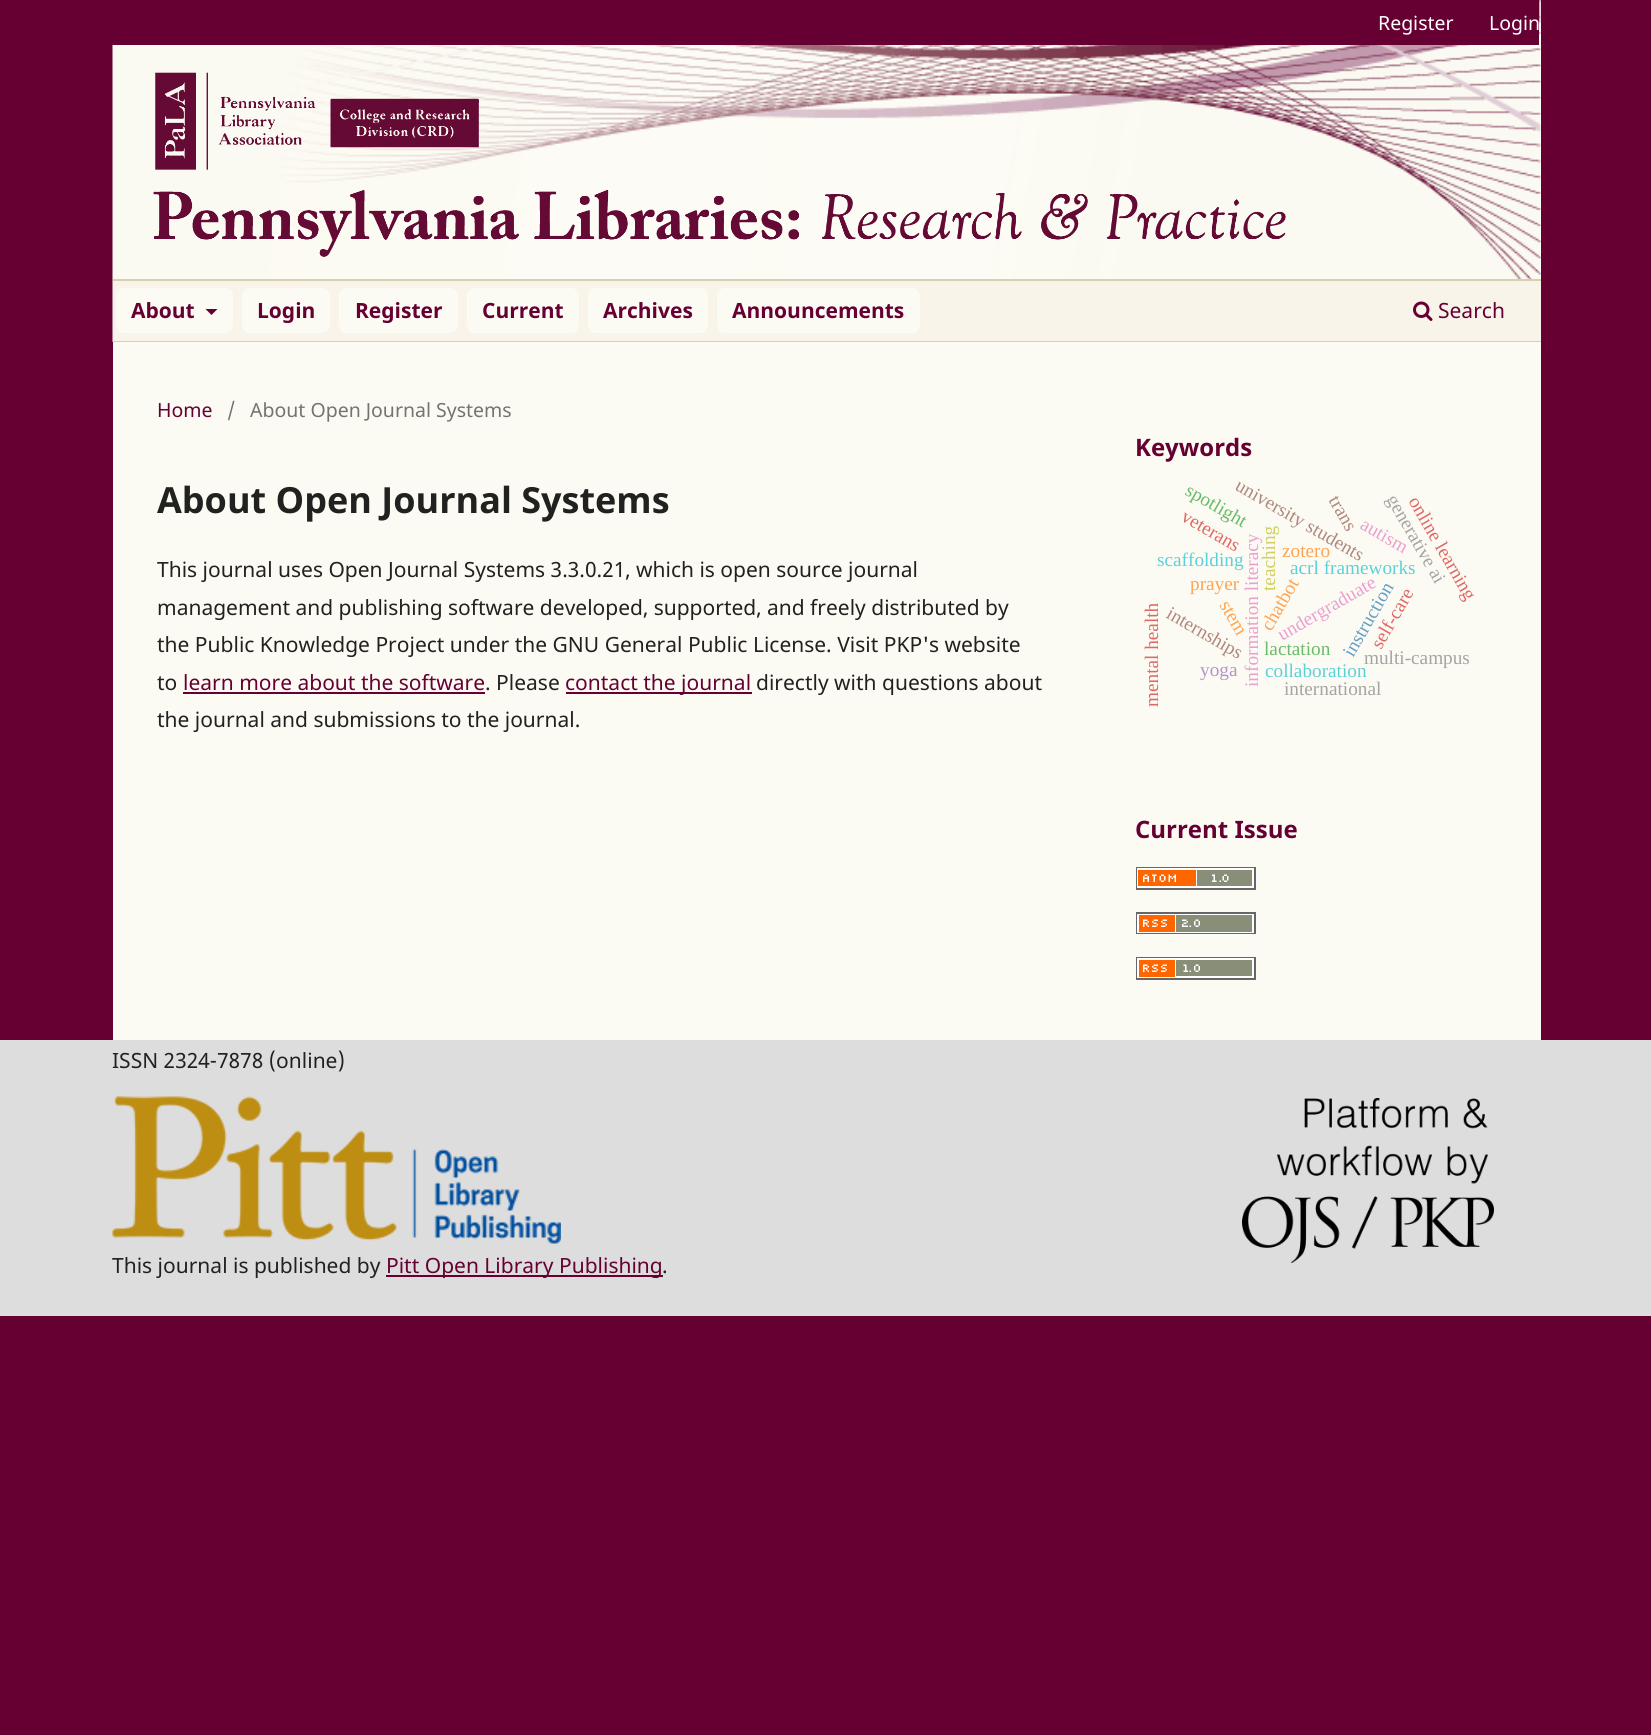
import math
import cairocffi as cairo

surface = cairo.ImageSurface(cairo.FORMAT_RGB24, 1651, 1735)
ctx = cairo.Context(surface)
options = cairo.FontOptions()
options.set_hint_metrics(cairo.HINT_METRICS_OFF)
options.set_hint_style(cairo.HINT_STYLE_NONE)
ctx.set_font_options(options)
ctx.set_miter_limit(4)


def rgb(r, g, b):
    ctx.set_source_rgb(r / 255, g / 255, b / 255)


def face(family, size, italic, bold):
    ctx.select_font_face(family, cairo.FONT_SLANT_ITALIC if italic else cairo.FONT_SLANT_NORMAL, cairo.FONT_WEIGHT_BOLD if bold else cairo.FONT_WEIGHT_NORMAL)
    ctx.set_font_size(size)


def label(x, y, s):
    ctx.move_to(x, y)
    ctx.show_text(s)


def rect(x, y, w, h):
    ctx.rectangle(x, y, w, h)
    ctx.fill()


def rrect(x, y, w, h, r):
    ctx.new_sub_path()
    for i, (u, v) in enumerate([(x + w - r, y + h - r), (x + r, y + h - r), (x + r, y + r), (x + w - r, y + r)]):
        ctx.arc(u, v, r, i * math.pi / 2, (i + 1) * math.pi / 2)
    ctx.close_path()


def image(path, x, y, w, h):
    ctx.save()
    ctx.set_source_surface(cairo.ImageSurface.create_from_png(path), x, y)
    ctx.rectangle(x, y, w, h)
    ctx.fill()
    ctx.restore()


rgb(102, 0, 51)
ctx.paint()
rgb(255, 255, 255)
rect(1540, 0, 1, 279)
image('image0.png', 112, 0, 1429, 342)
rgb(102, 0, 51)
rect(112, 0, 1427, 45)
face('Noto Sans', 19.5, 0, 0)
rgb(255, 255, 255)
label(1378, 30, 'Register')
label(1489, 30, 'Login')
rgb(248, 244, 233)
rect(113, 281, 1428, 60)
rgb(215, 208, 175)
rect(113, 279, 1428, 2)
rect(113, 341, 1428, 1)
rgb(252, 251, 243)
rrect(116, 288, 117, 45, 8)
ctx.fill()
face('Noto Sans', 21, 0, 1)
rgb(102, 0, 51)
label(131, 318, 'About')
ctx.new_path()
ctx.move_to(205.5, 309)
ctx.line_to(217.5, 309)
ctx.line_to(211.5, 315)
ctx.close_path()
ctx.fill()
rgb(252, 251, 243)
rrect(242, 288, 88, 45, 8)
ctx.fill()
rgb(102, 0, 51)
label(257, 318, 'Login')
rgb(252, 251, 243)
rrect(339, 288, 119, 45, 8)
ctx.fill()
rgb(102, 0, 51)
label(355, 318, 'Register')
rgb(252, 251, 243)
rrect(467, 288, 112, 45, 8)
ctx.fill()
rgb(102, 0, 51)
label(482, 318, 'Current')
rgb(252, 251, 243)
rrect(588, 288, 120, 45, 8)
ctx.fill()
rgb(102, 0, 51)
label(603, 318, 'Archives')
rgb(252, 251, 243)
rrect(717, 288, 203, 45, 8)
ctx.fill()
rgb(102, 0, 51)
label(732, 318, 'Announcements')
image('image1.png', 1413, 301, 20, 20)
face('Noto Sans', 21, 0, 0)
label(1438, 318, 'Search')
image('image2.png', 153, 72, 1133, 185)
rgb(252, 251, 243)
rect(113, 342, 1428, 698)
face('Noto Sans', 19.5, 0, 0)
rgb(102, 0, 51)
label(157, 417, 'Home')
rgb(116, 115, 112)
label(227, 417, '/')
label(250, 417, 'About Open Journal Systems')
face('Noto Sans', 36, 0, 1)
rgb(33, 33, 32)
label(157, 513, 'About Open Journal Systems')
face('Noto Sans', 21, 0, 0)
label(157, 577, 'This journal uses Open Journal Systems 3.3.0.21, which is open source journal')
label(157, 615, 'management and publishing software developed, supported, and freely distributed by')
label(157, 652, 'the Public Knowledge Project under the GNU General Public License. Visit PKP\'s website')
label(157, 690, 'to')
rgb(102, 0, 51)
label(183, 690, 'learn more about the software')
rect(183, 692, 302, 2)
rgb(33, 33, 32)
label(485, 690, '. Please')
rgb(102, 0, 51)
rect(566, 692, 186, 2)
label(565, 690, 'contact the journal')
rgb(33, 33, 32)
label(756, 690, 'directly with questions about')
label(157, 727, 'the journal and submissions to the journal.')
face('Noto Sans', 24, 0, 1)
rgb(102, 0, 51)
label(1135, 456, 'Keywords')
face('Liberation Serif', 19.25, 0, 0)
rgb(92, 208, 218)
label(1157, 566, 'scaffolding')
rgb(174, 136, 125)
ctx.save()
ctx.translate(1234, 489)
ctx.rotate(30 * math.pi / 180)
label(0, 0, 'university students')
ctx.restore()
rgb(225, 103, 101)
ctx.save()
ctx.translate(1180, 520)
ctx.rotate(30 * math.pi / 180)
label(0, 0, 'veterans')
ctx.restore()
rgb(106, 187, 104)
ctx.save()
ctx.translate(1184, 494)
ctx.rotate(30 * math.pi / 180)
label(0, 0, 'spotlight')
ctx.restore()
rgb(174, 136, 125)
ctx.save()
ctx.translate(1328, 500)
ctx.rotate(60 * math.pi / 180)
label(0, 0, 'trans')
ctx.restore()
rgb(92, 208, 218)
label(1290, 574, 'acrl frameworks')
rgb(165, 164, 162)
ctx.save()
ctx.translate(1386, 499)
ctx.rotate(60 * math.pi / 180)
label(0, 0, 'generative ai')
ctx.restore()
rgb(235, 159, 209)
ctx.save()
ctx.translate(1258, 687)
ctx.rotate(-90 * math.pi / 180)
label(0, 0, 'information literacy')
ctx.restore()
rgb(207, 208, 97)
ctx.save()
ctx.translate(1275, 591)
ctx.rotate(-90 * math.pi / 180)
label(0, 0, 'teaching')
ctx.restore()
rgb(254, 164, 83)
label(1282, 557, 'zotero')
rgb(235, 159, 209)
ctx.save()
ctx.translate(1359, 528)
ctx.rotate(30 * math.pi / 180)
label(0, 0, 'autism')
ctx.restore()
rgb(225, 103, 101)
ctx.save()
ctx.translate(1408, 501)
ctx.rotate(60 * math.pi / 180)
label(0, 0, 'online learning')
ctx.restore()
rgb(254, 164, 83)
ctx.save()
ctx.translate(1271, 632)
ctx.rotate(-60 * math.pi / 180)
label(0, 0, 'chatbot')
ctx.restore()
label(1190, 590, 'prayer')
rgb(235, 159, 209)
ctx.save()
ctx.translate(1282, 641)
ctx.rotate(-30 * math.pi / 180)
label(0, 0, 'undergraduate')
ctx.restore()
rgb(97, 159, 199)
ctx.save()
ctx.translate(1353, 658)
ctx.rotate(-60 * math.pi / 180)
label(0, 0, 'instruction')
ctx.restore()
rgb(225, 103, 101)
ctx.save()
ctx.translate(1158, 707)
ctx.rotate(-90 * math.pi / 180)
label(0, 0, 'mental health')
ctx.restore()
rgb(174, 136, 125)
ctx.save()
ctx.translate(1165, 617)
ctx.rotate(30 * math.pi / 180)
label(0, 0, 'internships')
ctx.restore()
rgb(254, 164, 83)
ctx.save()
ctx.translate(1219, 605)
ctx.rotate(60 * math.pi / 180)
label(0, 0, 'stem')
ctx.restore()
rgb(225, 103, 101)
ctx.save()
ctx.translate(1381, 650)
ctx.rotate(-60 * math.pi / 180)
label(0, 0, 'self-care')
ctx.restore()
rgb(106, 187, 104)
label(1264, 655, 'lactation')
rgb(165, 164, 162)
label(1364, 664, 'multi-campus')
rgb(179, 147, 205)
label(1200, 676, 'yoga')
rgb(92, 208, 218)
label(1265, 677, 'collaboration')
rgb(165, 164, 162)
label(1284, 695, 'international')
face('Noto Sans', 24, 0, 1)
rgb(102, 0, 51)
label(1135, 838, 'Current Issue')
image('image3.png', 1136, 867, 120, 23)
image('image4.png', 1136, 912, 120, 22)
image('image5.png', 1136, 957, 120, 23)
rgb(221, 221, 221)
rect(0, 1040, 1651, 276)
face('Noto Sans', 21, 0, 0)
rgb(33, 33, 32)
label(112, 1068, 'ISSN 2324-7878 (online)')
image('image6.png', 112, 1096, 449, 148)
label(112, 1273, 'This journal is published by')
rgb(102, 0, 51)
rect(386, 1275, 277, 2)
label(386, 1273, 'Pitt Open Library Publishing')
rgb(33, 33, 32)
label(662, 1273, '.')
image('image7.png', 1242, 1098, 252, 165)
surface.write_to_png('render.png')
